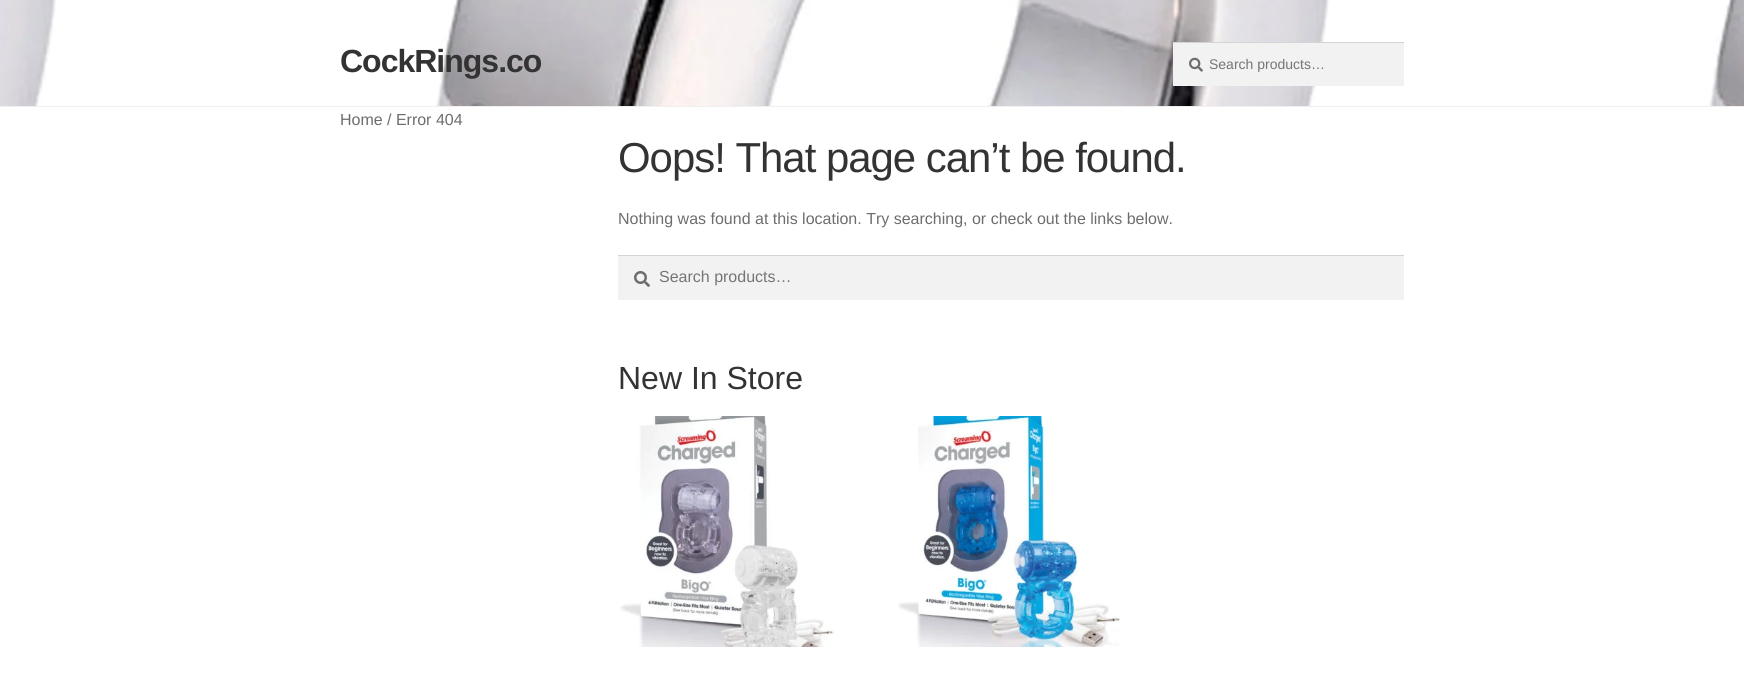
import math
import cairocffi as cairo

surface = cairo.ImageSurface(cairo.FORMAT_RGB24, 1744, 673)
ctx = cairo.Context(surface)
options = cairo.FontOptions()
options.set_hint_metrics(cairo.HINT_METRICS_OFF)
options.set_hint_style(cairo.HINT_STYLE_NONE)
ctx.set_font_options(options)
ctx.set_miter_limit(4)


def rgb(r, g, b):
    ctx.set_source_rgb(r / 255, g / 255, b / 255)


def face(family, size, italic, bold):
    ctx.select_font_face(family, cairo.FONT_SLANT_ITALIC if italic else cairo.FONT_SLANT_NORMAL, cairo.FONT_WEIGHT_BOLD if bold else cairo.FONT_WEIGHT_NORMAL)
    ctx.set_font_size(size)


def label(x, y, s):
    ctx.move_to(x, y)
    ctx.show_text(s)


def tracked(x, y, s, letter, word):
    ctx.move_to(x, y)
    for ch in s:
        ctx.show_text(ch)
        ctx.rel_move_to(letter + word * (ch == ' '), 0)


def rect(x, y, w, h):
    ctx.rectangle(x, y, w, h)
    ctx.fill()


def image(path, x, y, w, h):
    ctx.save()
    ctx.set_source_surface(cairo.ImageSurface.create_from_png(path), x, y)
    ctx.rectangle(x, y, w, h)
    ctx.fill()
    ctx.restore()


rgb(255, 255, 255)
ctx.paint()
image('image0.png', 0, 0, 1744, 106)
rgb(240, 240, 240)
rect(0, 106, 1744, 1)
face('Liberation Sans', 32, 0, 1)
rgb(51, 51, 51)
tracked(340, 72, 'CockRings.co', -1, 0)
rgb(242, 242, 242)
rect(1173, 43, 231, 43)
image('image1.png', 1189, 57, 14, 15)
rgb(212, 212, 212)
rect(1173, 42, 231, 1)
face('Liberation Sans', 14, 0, 0)
rgb(117, 117, 117)
label(1209, 69, 'Search products…')
face('Liberation Sans', 16, 0, 0)
rgb(109, 109, 109)
label(340, 125, 'Home')
label(387, 125, '/ Error 404')
face('Liberation Sans', 41.9, 0, 0)
rgb(51, 51, 51)
tracked(618, 172, 'Oops! That page can’t be found.', -1, 0)
face('Liberation Sans', 16, 0, 0)
rgb(109, 109, 109)
label(618, 224, 'Nothing was found at this location. Try searching, or check out the links below.')
rgb(242, 242, 242)
rect(618, 256, 786, 44)
image('image2.png', 634, 271, 16, 16)
rgb(212, 212, 212)
rect(618, 255, 786, 1)
rgb(117, 117, 117)
label(659, 282, 'Search products…')
face('Liberation Sans', 32, 0, 0)
rgb(51, 51, 51)
label(618, 389, 'New In Store')
image('image3.png', 620, 416, 215, 231)
image('image4.png', 898, 416, 222, 231)
surface.write_to_png('render.png')
